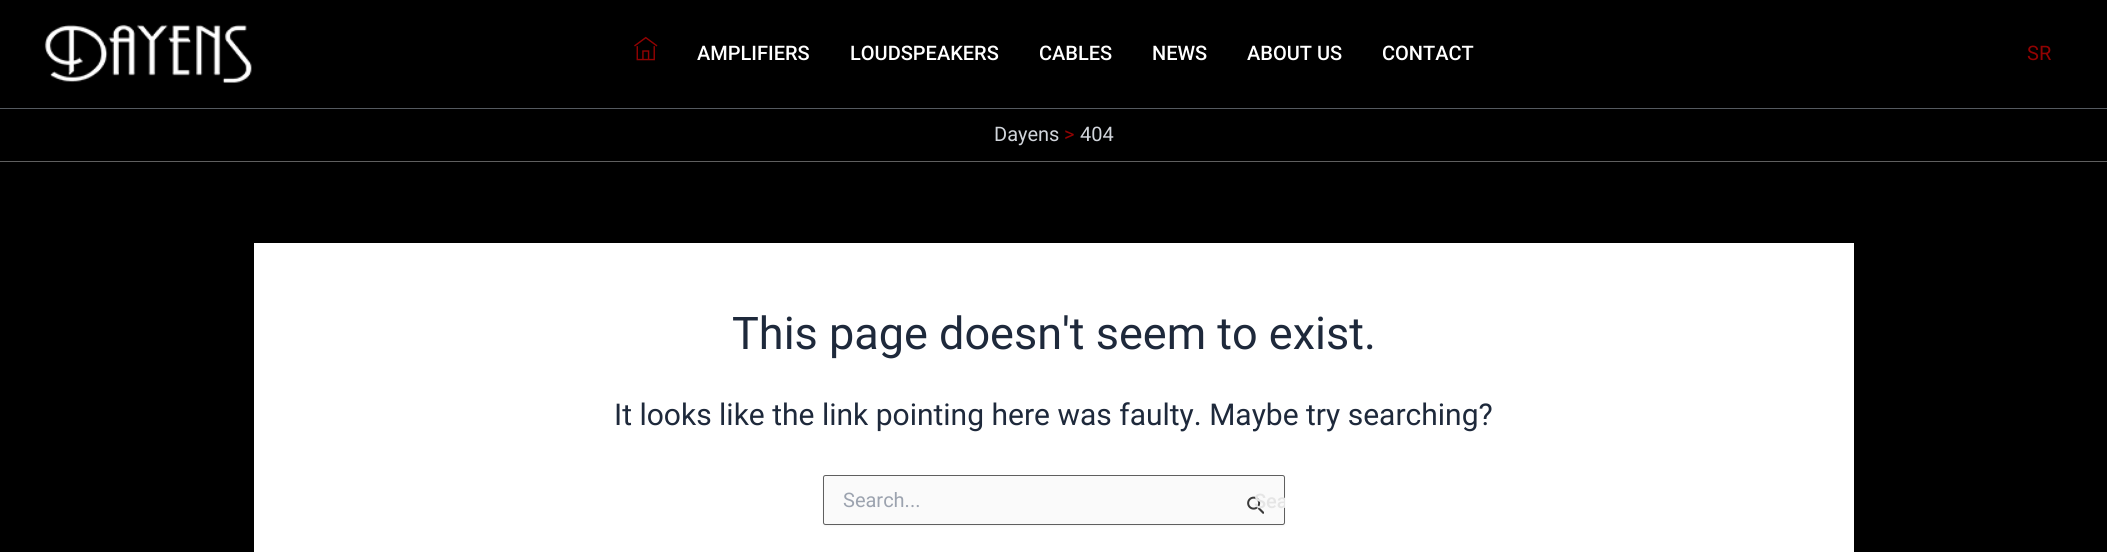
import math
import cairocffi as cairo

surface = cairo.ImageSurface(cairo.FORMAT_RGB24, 2107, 552)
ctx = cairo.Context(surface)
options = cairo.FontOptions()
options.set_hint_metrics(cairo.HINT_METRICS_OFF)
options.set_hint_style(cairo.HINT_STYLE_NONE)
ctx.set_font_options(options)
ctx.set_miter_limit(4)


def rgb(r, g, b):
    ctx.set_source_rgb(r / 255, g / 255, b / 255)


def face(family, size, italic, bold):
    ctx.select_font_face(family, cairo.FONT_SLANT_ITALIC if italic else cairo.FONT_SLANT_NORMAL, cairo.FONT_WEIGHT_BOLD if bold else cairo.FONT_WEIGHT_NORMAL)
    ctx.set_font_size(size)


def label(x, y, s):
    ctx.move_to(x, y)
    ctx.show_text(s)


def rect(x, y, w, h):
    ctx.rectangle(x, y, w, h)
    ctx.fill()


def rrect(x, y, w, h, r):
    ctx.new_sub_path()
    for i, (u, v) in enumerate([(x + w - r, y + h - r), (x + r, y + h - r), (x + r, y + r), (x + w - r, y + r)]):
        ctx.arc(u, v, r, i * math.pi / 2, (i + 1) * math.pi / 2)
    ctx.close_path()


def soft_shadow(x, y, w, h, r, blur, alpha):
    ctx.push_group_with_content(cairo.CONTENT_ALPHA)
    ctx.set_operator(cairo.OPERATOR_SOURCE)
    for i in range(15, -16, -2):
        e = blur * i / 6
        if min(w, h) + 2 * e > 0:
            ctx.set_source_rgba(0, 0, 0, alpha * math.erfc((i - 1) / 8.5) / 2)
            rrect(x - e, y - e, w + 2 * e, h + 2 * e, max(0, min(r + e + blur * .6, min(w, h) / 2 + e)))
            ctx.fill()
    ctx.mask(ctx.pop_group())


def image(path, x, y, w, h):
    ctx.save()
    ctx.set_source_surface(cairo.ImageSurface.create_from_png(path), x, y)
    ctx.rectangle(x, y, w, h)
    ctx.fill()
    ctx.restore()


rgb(0, 0, 0)
ctx.paint()
rgb(84, 89, 95)
rect(0, 108, 2107, 1)
image('image0.png', 44, 24, 208, 59)
image('image1.png', 634, 36, 24, 25)
face('Roboto Medium', 20, 0, 0)
rgb(255, 255, 255)
label(697, 60, 'AMPLIFIERS')
label(850, 60, 'LOUDSPEAKERS')
label(1039, 60, 'CABLES')
label(1152, 60, 'NEWS')
label(1247, 60, 'ABOUT US')
label(1382, 60, 'CONTACT')
face('Roboto', 20, 0, 0)
rgb(146, 2, 2)
label(2027, 60, 'SR')
rgb(95, 95, 95)
rect(0, 161, 2107, 1)
rgb(209, 213, 219)
label(994, 141, 'Dayens')
rgb(146, 2, 2)
label(1064, 141, '>')
rgb(209, 213, 219)
label(1080, 141, '404')
rgb(255, 255, 255)
rect(254, 243, 1600, 309)
face('Roboto', 45, 0, 0)
rgb(30, 41, 59)
label(732, 349, 'This page doesn\'t seem to exist.')
face('Roboto', 30, 0, 0)
label(614, 425, 'It looks like the link pointing here was faulty. Maybe try searching?')
rgb(0, 0, 0)
soft_shadow(823, 476, 462, 50, 2.5, 1, 0.05)
rgb(250, 250, 250)
rrect(823.5, 475.5, 461, 49, 2)
ctx.fill_preserve()
rgb(95, 95, 95)
ctx.set_line_width(1)
ctx.stroke()
face('Roboto', 20, 0, 0)
rgb(156, 163, 175)
label(843, 507, 'Search...')
image('image2.png', 1247, 496, 17, 18)
ctx.save()
rrect(1229, 475, 56, 53, 2.5)
ctx.clip()
face('Roboto Medium', 20, 0, 0)
rgb(229, 229, 229)
label(1254, 508, 'Sea')
ctx.restore()
surface.write_to_png('render.png')
